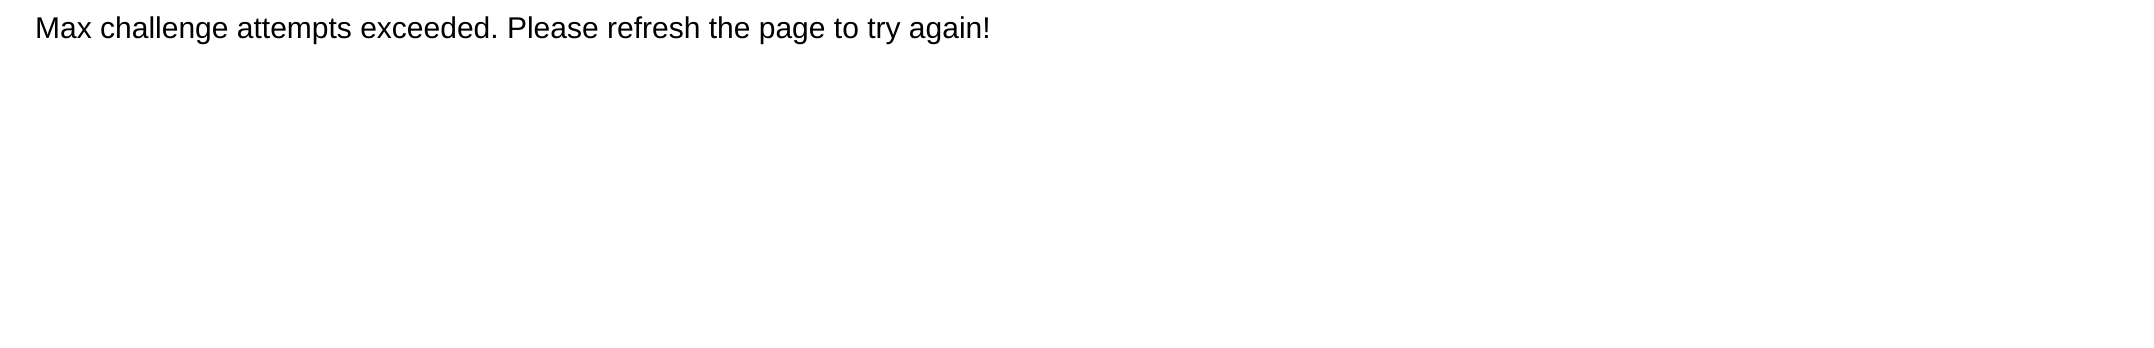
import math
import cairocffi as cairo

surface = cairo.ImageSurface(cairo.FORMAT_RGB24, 2154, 348)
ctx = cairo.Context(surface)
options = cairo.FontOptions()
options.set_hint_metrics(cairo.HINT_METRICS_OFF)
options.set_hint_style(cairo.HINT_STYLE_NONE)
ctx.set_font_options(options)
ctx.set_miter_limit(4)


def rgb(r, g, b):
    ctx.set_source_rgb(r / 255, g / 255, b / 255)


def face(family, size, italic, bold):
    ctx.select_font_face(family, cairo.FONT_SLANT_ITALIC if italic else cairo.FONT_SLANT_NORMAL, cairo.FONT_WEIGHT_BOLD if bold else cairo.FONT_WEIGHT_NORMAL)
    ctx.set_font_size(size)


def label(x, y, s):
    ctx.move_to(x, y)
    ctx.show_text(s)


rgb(255, 255, 255)
ctx.paint()
face('Liberation Sans', 30, 0, 0)
rgb(0, 0, 0)
label(35, 38, 'Max challenge attempts exceeded. Please refresh the page to try again!')
surface.write_to_png('render.png')
